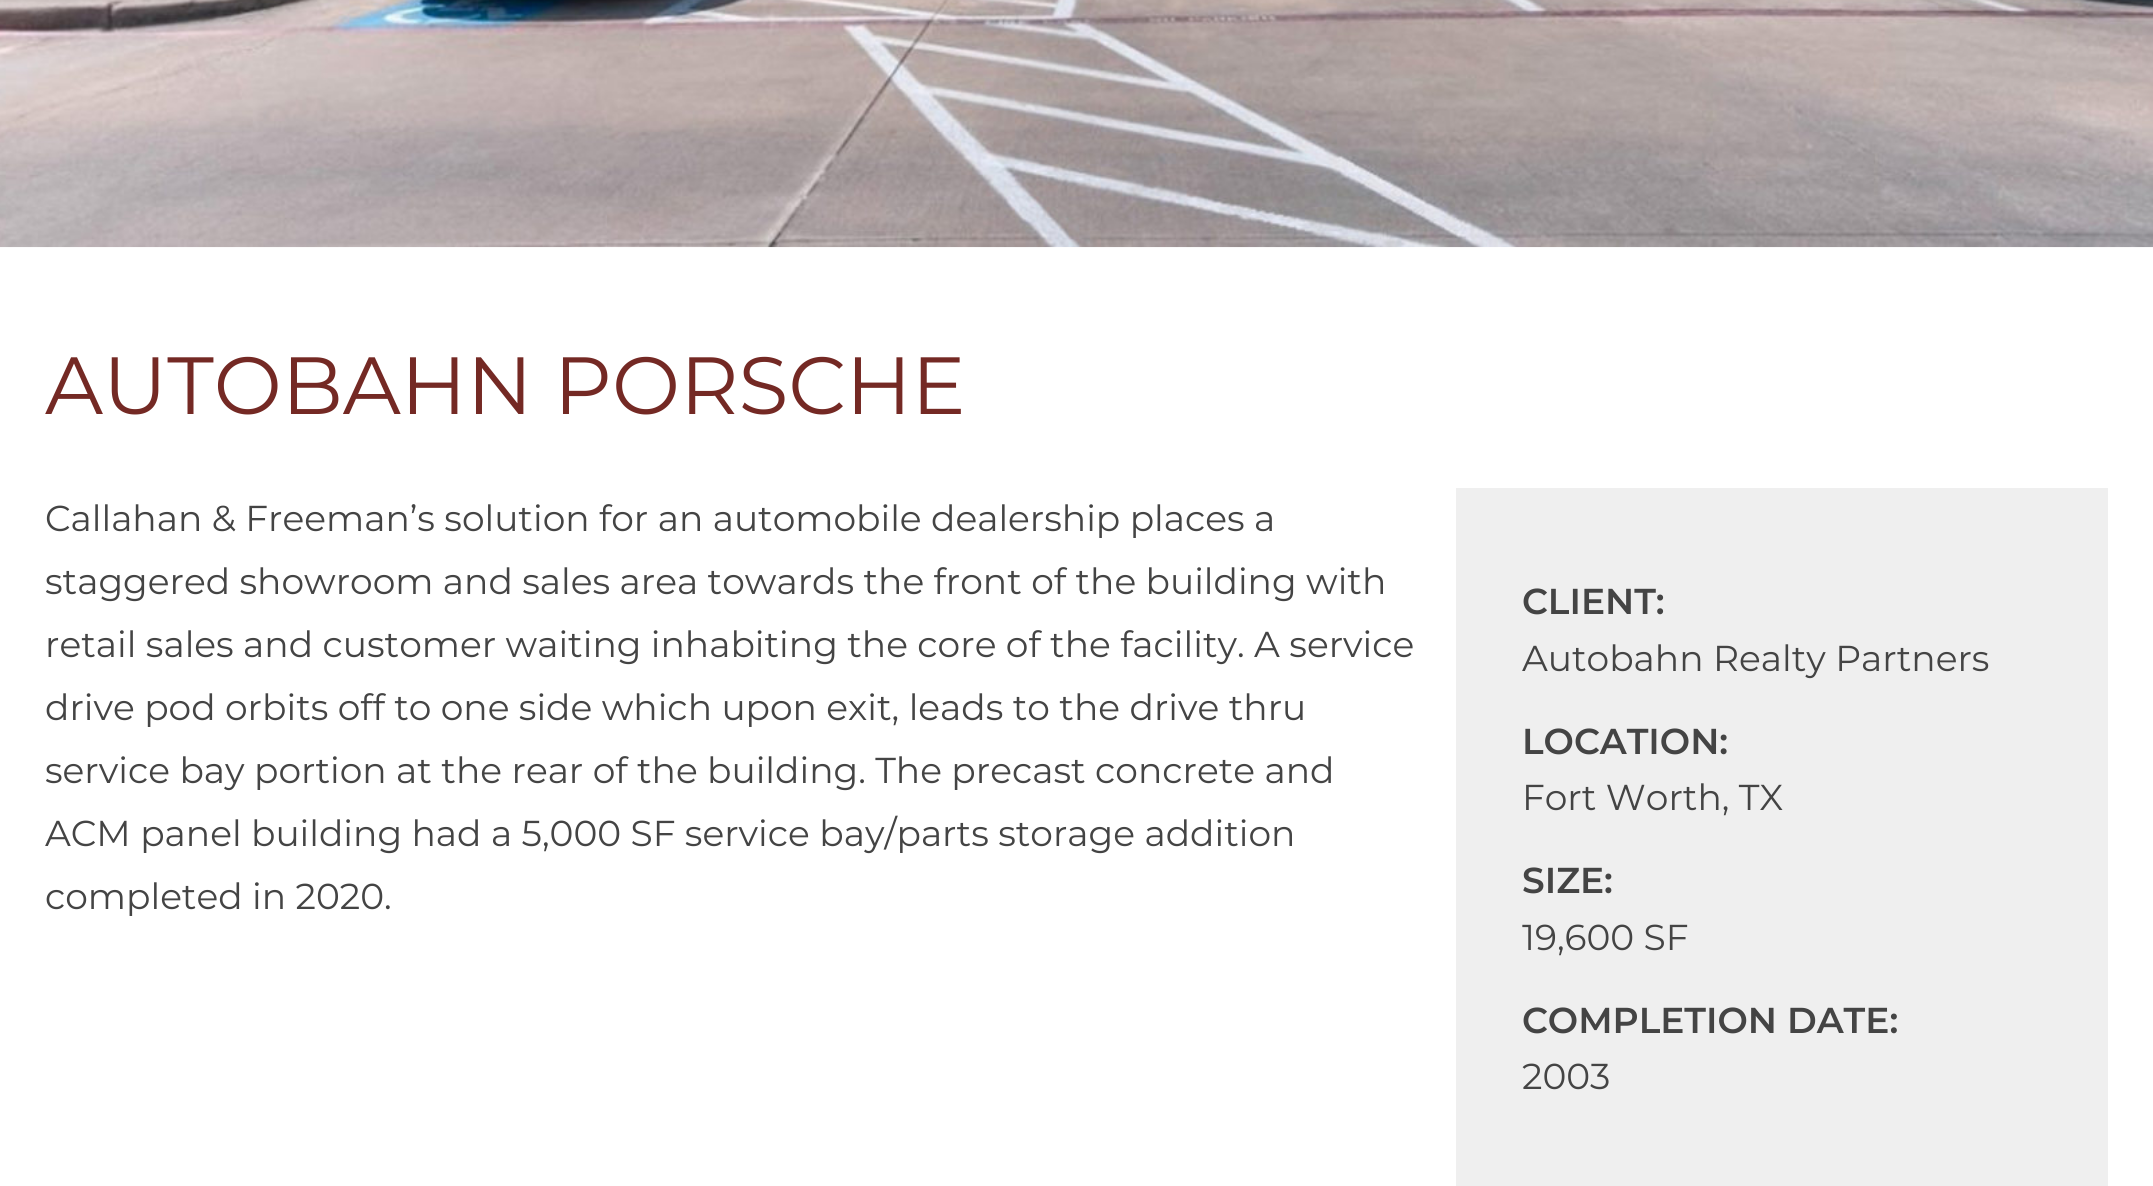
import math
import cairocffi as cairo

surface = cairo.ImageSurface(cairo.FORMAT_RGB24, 2153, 1186)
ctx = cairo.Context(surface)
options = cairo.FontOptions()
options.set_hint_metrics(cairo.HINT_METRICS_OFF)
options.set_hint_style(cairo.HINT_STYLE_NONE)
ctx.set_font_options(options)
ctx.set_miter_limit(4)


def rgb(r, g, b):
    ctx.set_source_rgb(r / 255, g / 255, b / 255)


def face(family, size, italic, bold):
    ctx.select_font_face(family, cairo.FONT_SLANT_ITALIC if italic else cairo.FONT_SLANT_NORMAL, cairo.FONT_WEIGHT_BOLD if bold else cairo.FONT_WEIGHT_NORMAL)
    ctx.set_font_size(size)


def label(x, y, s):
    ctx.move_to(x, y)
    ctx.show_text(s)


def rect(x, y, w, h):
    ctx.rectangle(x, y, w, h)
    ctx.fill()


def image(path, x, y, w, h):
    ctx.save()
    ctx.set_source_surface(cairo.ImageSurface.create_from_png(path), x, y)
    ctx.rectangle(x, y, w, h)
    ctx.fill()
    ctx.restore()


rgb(255, 255, 255)
ctx.paint()
image('image0.png', 0, 0, 2153, 248)
face('Montserrat', 81, 0, 0)
rgb(116, 41, 36)
label(45, 414, 'AUTOBAHN PORSCHE')
face('Montserrat', 36, 0, 0)
rgb(68, 68, 68)
label(45, 531, 'Callahan & Freeman’s solution for an automobile dealership places a')
label(45, 594, 'staggered showroom and sales area towards the front of the building with')
label(45, 657, 'retail sales and customer waiting inhabiting the core of the facility. A service')
label(45, 720, 'drive pod orbits off to one side which upon exit, leads to the drive thru')
label(45, 783, 'service bay portion at the rear of the building. The precast concrete and')
label(45, 846, 'ACM panel building had a 5,000 SF service bay/parts storage addition')
label(45, 909, 'completed in 2020.')
rgb(239, 239, 239)
rect(1456, 488, 652, 698)
face('Montserrat SemiBold', 36, 0, 0)
rgb(68, 68, 68)
label(1522, 614, 'CLIENT:')
face('Montserrat', 36, 0, 0)
label(1522, 671, 'Autobahn Realty Partners')
face('Montserrat SemiBold', 36, 0, 0)
label(1522, 754, 'LOCATION:')
face('Montserrat', 36, 0, 0)
label(1522, 810, 'Fort Worth, TX')
face('Montserrat SemiBold', 36, 0, 0)
label(1522, 893, 'SIZE:')
face('Montserrat', 36, 0, 0)
label(1522, 950, '19,600 SF')
face('Montserrat SemiBold', 36, 0, 0)
label(1522, 1033, 'COMPLETION DATE:')
face('Montserrat', 36, 0, 0)
label(1522, 1089, '2003')
surface.write_to_png('render.png')
